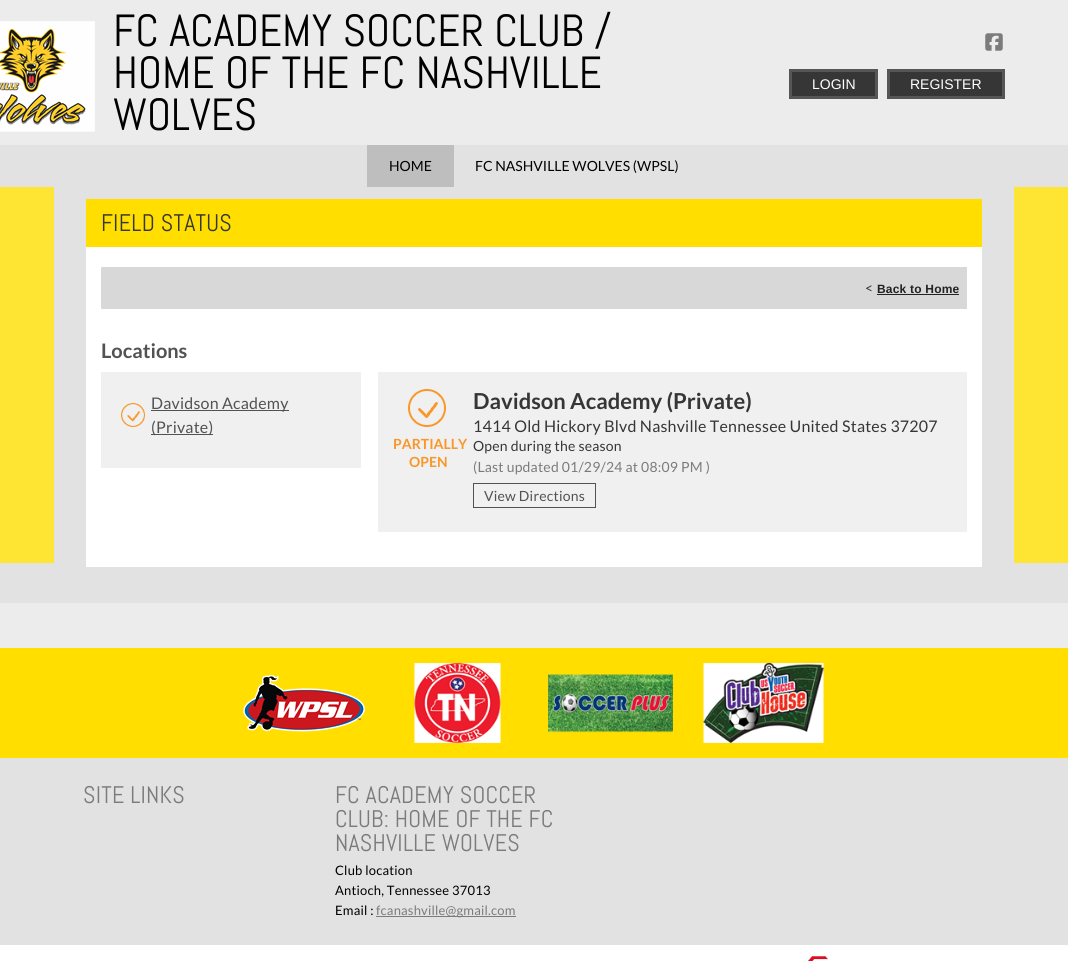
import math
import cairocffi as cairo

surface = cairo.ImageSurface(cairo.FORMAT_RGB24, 1068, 961)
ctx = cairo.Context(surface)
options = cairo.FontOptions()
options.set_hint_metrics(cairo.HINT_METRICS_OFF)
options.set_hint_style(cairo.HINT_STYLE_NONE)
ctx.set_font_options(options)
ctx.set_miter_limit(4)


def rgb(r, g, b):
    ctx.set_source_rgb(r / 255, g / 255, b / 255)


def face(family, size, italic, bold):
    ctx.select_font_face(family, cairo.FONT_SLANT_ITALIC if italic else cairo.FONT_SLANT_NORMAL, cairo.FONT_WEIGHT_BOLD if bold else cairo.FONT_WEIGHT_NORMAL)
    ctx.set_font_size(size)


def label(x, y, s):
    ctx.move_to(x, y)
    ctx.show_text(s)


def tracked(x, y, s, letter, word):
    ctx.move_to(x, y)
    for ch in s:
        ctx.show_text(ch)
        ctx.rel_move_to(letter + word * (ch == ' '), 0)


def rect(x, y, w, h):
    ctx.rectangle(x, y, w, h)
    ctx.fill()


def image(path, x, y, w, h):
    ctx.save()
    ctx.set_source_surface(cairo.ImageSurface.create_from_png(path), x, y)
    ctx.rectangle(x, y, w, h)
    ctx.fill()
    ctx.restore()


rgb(236, 236, 236)
ctx.paint()
image('image0.png', 0, 21, 95, 111)
face('Abel', 45, 0, 0)
rgb(0, 0, 0)
label(113, 46, 'FC ACADEMY SOCCER CLUB /')
label(113, 88, 'HOME OF THE FC NASHVILLE')
label(113, 130, 'WOLVES')
image('image1.png', 985, 33, 18, 18)
rgb(54, 54, 54)
ctx.rectangle(790.5, 70.5, 86, 27)
ctx.fill_preserve()
rgb(86, 86, 86)
ctx.set_line_width(3)
ctx.stroke()
face('Liberation Sans', 14, 0, 0)
rgb(255, 255, 255)
label(812, 89, 'LOGIN')
rgb(54, 54, 54)
ctx.rectangle(888.5, 70.5, 115, 27)
ctx.fill_preserve()
rgb(86, 86, 86)
ctx.stroke()
rgb(255, 255, 255)
label(910, 89, 'REGISTER')
rgb(226, 226, 226)
rect(0, 145, 1068, 42)
rgb(190, 190, 190)
rect(367, 145, 87, 42)
face('Lato', 14, 0, 0)
rgb(0, 0, 0)
label(389, 171, 'HOME')
label(475, 171, 'FC NASHVILLE WOLVES (WPSL)')
rgb(226, 226, 226)
rect(0, 563, 1068, 40)
rgb(255, 229, 51)
rect(0, 187, 54, 376)
rect(1014, 187, 54, 376)
rgb(226, 226, 226)
rect(54, 187, 960, 376)
rgb(255, 222, 0)
rect(86, 199, 896, 48)
face('Abel', 24, 0, 0)
rgb(54, 54, 54)
tracked(101, 231, 'FIELD STATUS', 0.25, 0)
rgb(255, 255, 255)
rect(86, 247, 896, 320)
rgb(216, 216, 216)
rect(101, 267, 866, 42)
face('Lato', 14, 0, 0)
rgb(54, 54, 54)
tracked(865, 293, '<', 0.2, 0)
face('Liberation Sans', 12, 0, 1)
rgb(34, 34, 34)
tracked(877, 293, 'Back to Home', 0.2, 0)
rect(877, 294, 82, 1)
face('Lato', 20, 0, 1)
rgb(82, 82, 82)
label(101, 358, 'Locations')
rgb(240, 240, 240)
rect(101, 372, 260, 96)
image('image2.png', 121, 403, 24, 24)
rgb(82, 82, 82)
rect(151, 410, 138, 1)
face('Lato', 16, 0, 0)
tracked(151, 409, 'Davidson Academy', 0.2, 0)
rect(151, 434, 62, 1)
tracked(151, 433, '(Private)', 0.2, 0)
ctx.rectangle(385.5, 379.5, 574, 145)
rgb(240, 240, 240)
ctx.set_line_width(15)
ctx.stroke()
rect(393, 387, 559, 130)
face('Lato', 14, 0, 1)
rgb(248, 151, 42)
label(393, 449, 'PARTIALLY')
label(409, 467, 'OPEN')
image('image3.png', 408, 389, 38, 38)
face('Lato', 22, 0, 1)
rgb(54, 54, 54)
label(473, 409, 'Davidson Academy (Private)')
face('Lato', 16, 0, 0)
tracked(473, 432, '1414 Old Hickory Blvd Nashville Tennessee United States 37207', 0.2, 0)
face('Lato', 14, 0, 0)
tracked(473, 451, 'Open during the season', 0.2, 0)
rgb(123, 123, 123)
tracked(473, 472, '(Last updated 01/29/24 at 08:09 PM )', 0.2, 0)
ctx.rectangle(473.5, 483.5, 122, 24)
rgb(82, 82, 82)
ctx.set_line_width(1)
ctx.stroke()
tracked(484, 501, 'View Directions', 0.2, 0)
rgb(255, 222, 0)
rect(0, 648, 1068, 110)
image('image4.png', 243, 674, 122, 58)
image('image5.png', 414, 663, 87, 80)
image('image6.png', 548, 674, 125, 59)
image('image7.png', 702, 663, 123, 80)
rgb(226, 226, 226)
rect(0, 758, 1068, 187)
face('Abel', 24, 0, 0)
rgb(123, 123, 123)
tracked(83, 803, 'SITE LINKS', 0.2, 0)
tracked(335, 803, 'FC ACADEMY SOCCER', 0.2, 0)
tracked(335, 827, 'CLUB: HOME OF THE FC', 0.2, 0)
tracked(335, 851, 'NASHVILLE WOLVES', 0.2, 0)
face('Lato', 13, 0, 0)
rgb(0, 0, 0)
tracked(335, 875, 'Club location', 0.2, 0)
tracked(335, 895, 'Antioch, Tennessee 37013', 0.2, 0)
tracked(335, 915, 'Email :', 0.2, 0)
rgb(123, 123, 123)
rect(376, 916, 140, 1)
tracked(376, 915, 'fcanashville@gmail.com', 0.2, 0)
rgb(255, 255, 255)
rect(0, 945, 1068, 16)
image('image8.png', 808, 956, 20, 5)
surface.write_to_png('render.png')
